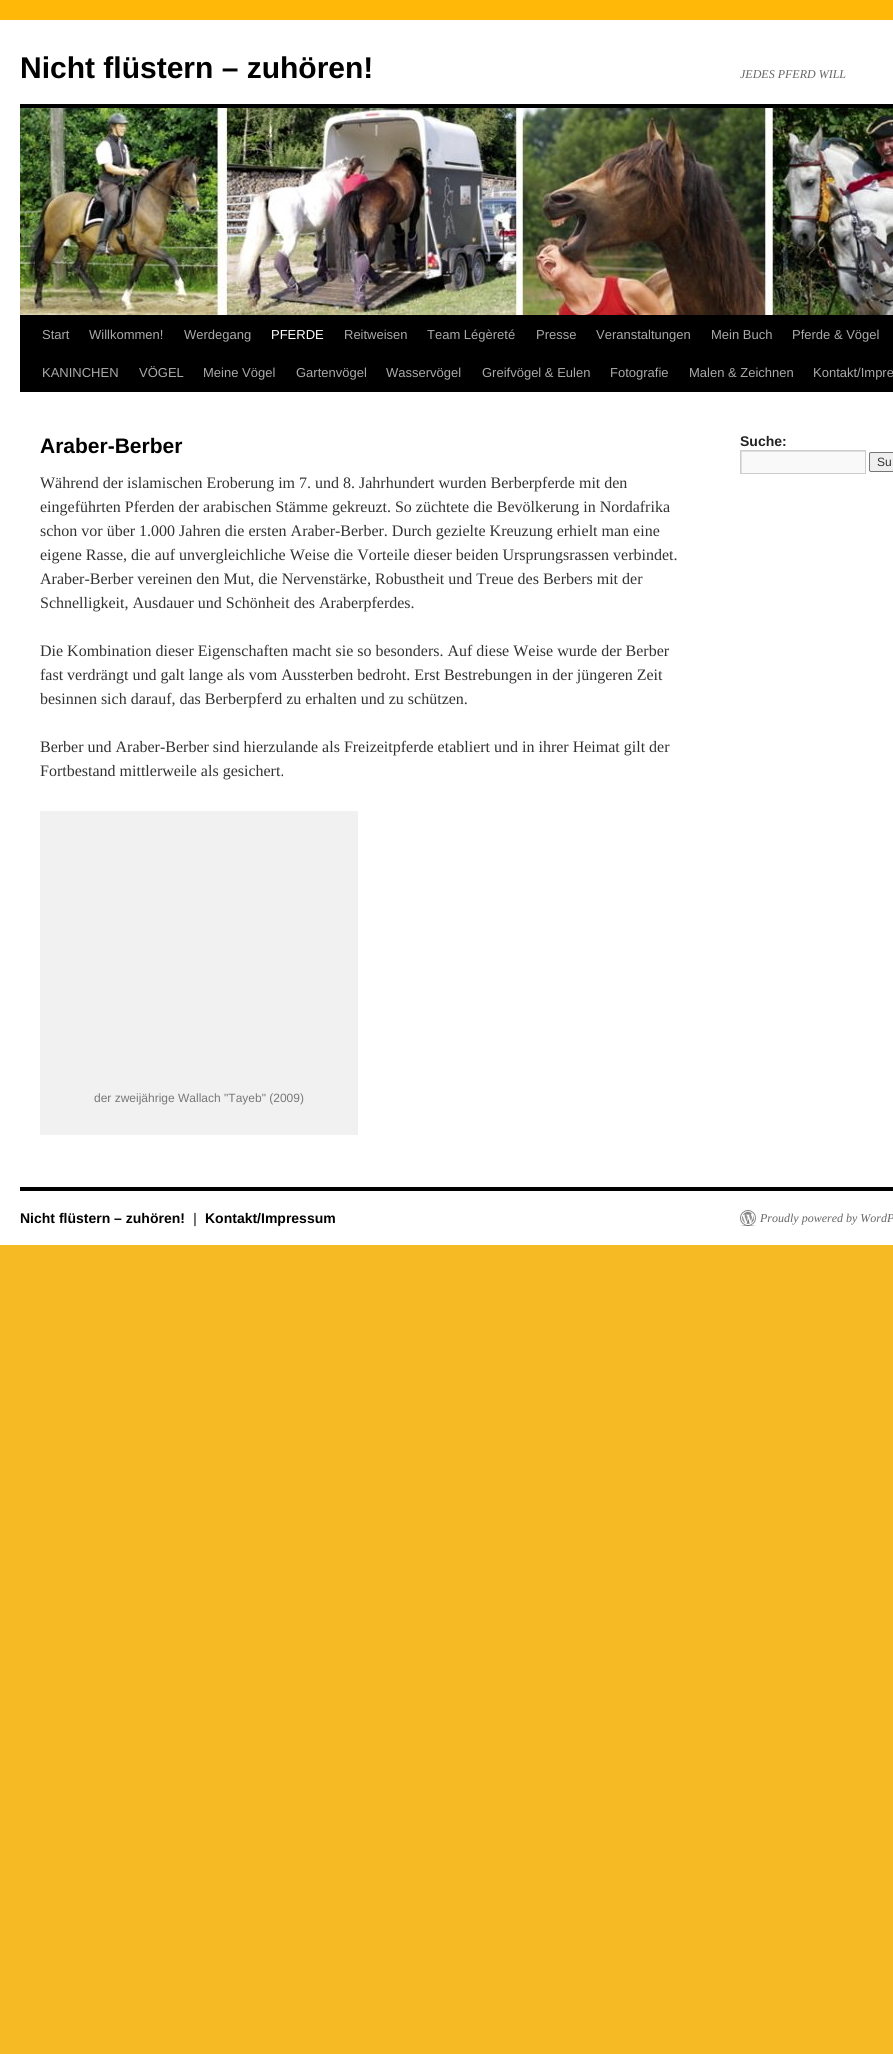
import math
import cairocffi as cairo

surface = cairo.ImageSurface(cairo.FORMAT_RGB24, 893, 2054)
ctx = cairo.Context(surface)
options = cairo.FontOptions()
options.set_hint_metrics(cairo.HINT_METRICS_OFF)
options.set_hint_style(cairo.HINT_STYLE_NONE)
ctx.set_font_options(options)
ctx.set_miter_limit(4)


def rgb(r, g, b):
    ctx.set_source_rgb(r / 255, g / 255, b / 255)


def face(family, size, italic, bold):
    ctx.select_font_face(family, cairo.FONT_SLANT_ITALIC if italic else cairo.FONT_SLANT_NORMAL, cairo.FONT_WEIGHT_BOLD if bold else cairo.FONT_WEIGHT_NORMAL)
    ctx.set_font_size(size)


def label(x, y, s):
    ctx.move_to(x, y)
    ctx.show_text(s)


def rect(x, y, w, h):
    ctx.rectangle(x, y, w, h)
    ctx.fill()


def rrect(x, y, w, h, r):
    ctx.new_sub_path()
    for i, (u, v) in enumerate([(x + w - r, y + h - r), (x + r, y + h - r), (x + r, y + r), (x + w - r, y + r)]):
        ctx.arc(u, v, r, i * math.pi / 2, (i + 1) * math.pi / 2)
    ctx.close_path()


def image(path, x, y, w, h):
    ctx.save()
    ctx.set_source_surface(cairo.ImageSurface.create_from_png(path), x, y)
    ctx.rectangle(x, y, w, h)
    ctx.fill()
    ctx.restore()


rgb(245, 186, 36)
ctx.paint()
image('image0.png', 0, 0, 893, 20)
rgb(255, 255, 255)
rect(0, 20, 893, 1225)
face('Liberation Sans', 30, 0, 1)
rgb(0, 0, 0)
label(20, 78, 'Nicht flüstern – zuhören!')
face('Liberation Serif', 12, 1, 0)
rgb(102, 102, 102)
label(740, 78, 'JEDES PFERD WILL')
rgb(0, 0, 0)
rect(20, 104, 873, 4)
rect(20, 315, 873, 77)
image('image1.png', 20, 108, 873, 207)
face('Liberation Sans', 13, 0, 0)
rgb(170, 170, 170)
label(42, 339, 'Start')
label(89, 339, 'Willkommen!')
label(184, 339, 'Werdegang')
rgb(255, 255, 255)
label(271, 339, 'PFERDE')
rgb(170, 170, 170)
label(344, 339, 'Reitweisen')
label(427, 339, 'Team Légèreté')
label(536, 339, 'Presse')
label(596, 339, 'Veranstaltungen')
label(711, 339, 'Mein Buch')
label(792, 339, 'Pferde & Vögel')
label(42, 377, 'KANINCHEN')
label(139, 377, 'VÖGEL')
label(203, 377, 'Meine Vögel')
label(296, 377, 'Gartenvögel')
label(386, 377, 'Wasservögel')
label(482, 377, 'Greifvögel & Eulen')
label(610, 377, 'Fotografie')
label(689, 377, 'Malen & Zeichnen')
label(813, 377, 'Kontakt/Impre')
face('Liberation Sans', 21, 0, 1)
rgb(0, 0, 0)
label(40, 453, 'Araber-Berber')
face('Liberation Serif', 16, 0, 0)
rgb(51, 51, 51)
label(40, 488, 'Während der islamischen Eroberung im 7. und 8. Jahrhundert wurden Berberpferde mit den')
label(40, 512, 'eingeführten Pferden der arabischen Stämme gekreuzt. So züchtete die Bevölkerung in Nordafrika')
label(40, 536, 'schon vor über 1.000 Jahren die ersten Araber-Berber. Durch gezielte Kreuzung erhielt man eine')
label(40, 560, 'eigene Rasse, die auf unvergleichliche Weise die Vorteile dieser beiden Ursprungsrassen verbindet.')
label(40, 584, 'Araber-Berber vereinen den Mut, die Nervenstärke, Robustheit und Treue des Berbers mit der')
label(40, 608, 'Schnelligkeit, Ausdauer und Schönheit des Araberpferdes.')
label(40, 656, 'Die Kombination dieser Eigenschaften macht sie so besonders. Auf diese Weise wurde der Berber')
label(40, 680, 'fast verdrängt und galt lange als vom Aussterben bedroht. Erst Bestrebungen in der jüngeren Zeit')
label(40, 704, 'besinnen sich darauf, das Berberpferd zu erhalten und zu schützen.')
label(40, 752, 'Berber und Araber-Berber sind hierzulande als Freizeitpferde etabliert und in ihrer Heimat gilt der')
label(40, 776, 'Fortbestand mittlerweile als gesichert.')
rgb(241, 241, 241)
rect(40, 811, 318, 324)
face('Liberation Sans', 12, 0, 0)
rgb(119, 119, 119)
label(94, 1102, 'der zweijährige Wallach "Tayeb" (2009)')
face('Liberation Sans', 14, 0, 1)
rgb(34, 34, 34)
label(740, 446, 'Suche:')
rgb(249, 249, 249)
rect(742, 452, 123, 21)
ctx.save()
ctx.rectangle(741, 451, 124, 22)
ctx.clip()
rgb(224, 224, 224)
ctx.set_fill_rule(cairo.FILL_RULE_EVEN_ODD)
ctx.new_path()
ctx.move_to(642, 352)
ctx.line_to(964, 352)
ctx.line_to(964, 572)
ctx.line_to(642, 572)
ctx.close_path()
ctx.move_to(742, 452)
ctx.line_to(866, 452)
ctx.line_to(866, 474)
ctx.line_to(742, 474)
ctx.close_path()
ctx.fill()
ctx.restore()
ctx.rectangle(740.5, 450.5, 125, 23)
rgb(204, 204, 204)
ctx.set_line_width(1)
ctx.stroke()
rgb(239, 239, 239)
rrect(869.5, 452.5, 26, 19, 1.5)
ctx.fill_preserve()
rgb(118, 118, 118)
ctx.stroke()
face('Liberation Sans', 12, 0, 0)
rgb(51, 51, 51)
label(877, 466, 'Su')
rgb(0, 0, 0)
rect(20, 1187, 873, 4)
face('Liberation Sans', 14, 0, 1)
label(20, 1223, 'Nicht flüstern – zuhören!')
rgb(102, 102, 102)
label(193, 1223, '|')
rgb(0, 0, 0)
label(205, 1223, 'Kontakt/Impressum')
image('image2.png', 740, 1210, 16, 16)
face('Liberation Serif', 12, 1, 0)
rgb(102, 102, 102)
label(760, 1222, 'Proudly powered by WordP')
surface.write_to_png('render.png')
